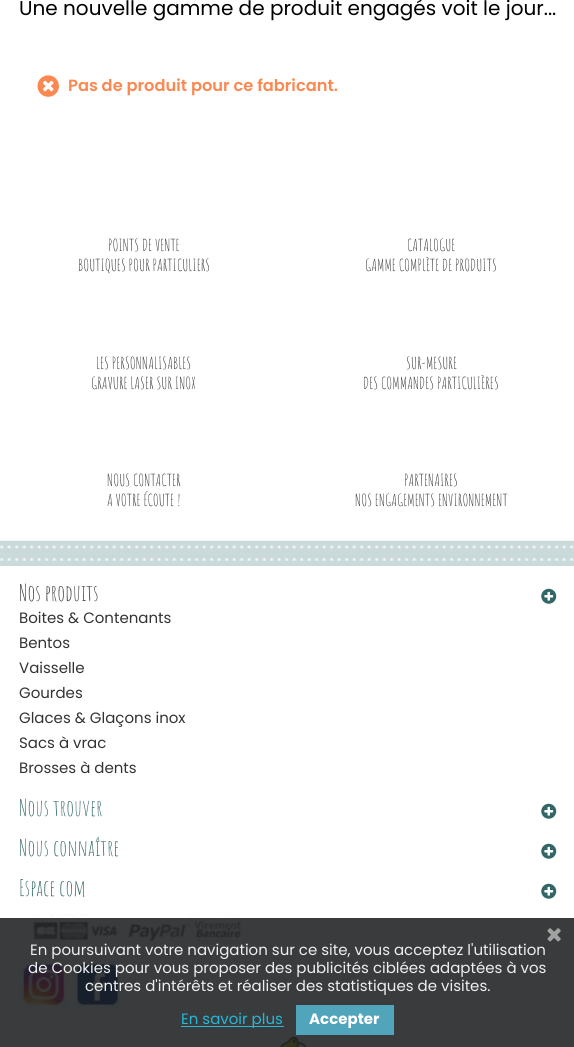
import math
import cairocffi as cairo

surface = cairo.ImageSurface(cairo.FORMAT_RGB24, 574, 1047)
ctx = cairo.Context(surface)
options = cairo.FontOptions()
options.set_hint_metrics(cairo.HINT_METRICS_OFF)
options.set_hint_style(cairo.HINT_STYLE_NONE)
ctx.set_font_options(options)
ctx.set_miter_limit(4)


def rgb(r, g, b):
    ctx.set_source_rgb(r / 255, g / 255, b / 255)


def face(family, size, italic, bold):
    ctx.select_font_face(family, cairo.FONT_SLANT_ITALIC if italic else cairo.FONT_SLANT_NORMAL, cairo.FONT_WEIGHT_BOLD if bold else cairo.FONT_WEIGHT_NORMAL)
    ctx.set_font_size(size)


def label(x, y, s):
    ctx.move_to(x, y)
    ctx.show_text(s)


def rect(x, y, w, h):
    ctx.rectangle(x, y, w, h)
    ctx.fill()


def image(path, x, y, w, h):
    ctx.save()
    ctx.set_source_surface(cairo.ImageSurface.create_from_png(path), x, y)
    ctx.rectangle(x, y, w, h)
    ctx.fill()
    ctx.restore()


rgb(255, 255, 255)
ctx.paint()
face('Poppins', 20, 0, 0)
rgb(0, 0, 0)
label(19, 15, 'Une nouvelle gamme de produit engagés voit le jour...')
image('image0.png', 37, 75, 22, 22)
face('Poppins SemiBold', 16.25, 0, 0)
rgb(251, 135, 81)
label(68, 91, 'Pas de produit pour ce fabricant.')
face('Amatic SC', 16.25, 0, 0)
rgb(51, 51, 51)
label(108, 251, 'POINTS DE VENTE')
label(78, 271, 'BOUTIQUES POUR PARTICULIERS')
label(407, 251, 'CATALOGUE')
label(365, 271, 'GAMME COMPLÈTE DE PRODUITS')
label(96, 369, 'LES PERSONNALISABLES')
label(91, 389, 'GRAVURE LASER SUR INOX')
label(406, 369, 'SUR-MESURE')
label(363, 389, 'DES COMMANDES PARTICULIÈRES')
label(107, 486, 'NOUS CONTACTER')
label(107, 506, 'A VOTRE ÉCOUTE !')
label(404, 486, 'PARTENAIRES')
label(355, 506, 'NOS ENGAGEMENTS ENVIRONNEMENT')
rgb(202, 218, 218)
rect(0, 549, 574, 17)
image('image1.png', 0, 540, 574, 9)
image('image2.png', 0, 558, 574, 3)
face('Amatic SC', 22.5, 0, 0)
rgb(51, 51, 51)
label(19, 601, 'Nos produits')
image('image3.png', 541, 588, 16, 16)
face('Poppins', 15, 0, 0)
label(19, 623, 'Boites & Contenants')
label(19, 648, 'Bentos')
label(19, 673, 'Vaisselle')
label(19, 698, 'Gourdes')
label(19, 723, 'Glaces & Glaçons inox')
label(19, 748, 'Sacs à vrac')
label(19, 773, 'Brosses à dents')
face('Amatic SC', 22.5, 0, 0)
rgb(51, 102, 102)
label(19, 816, 'Nous trouver')
image('image3.png', 541, 803, 16, 16)
label(19, 856, 'Nous connaître')
image('image3.png', 541, 843, 16, 16)
label(19, 896, 'Espace com')
image('image3.png', 541, 883, 16, 16)
image('image4.png', 30, 913, 212, 32)
image('image5.png', 18, 959, 51, 51)
image('image6.png', 72, 959, 51, 51)
image('image7.png', 279, 1036, 28, 11)
ctx.set_source_rgba(0.09, 0.098, 0.11, 0.85)
rect(0, 918, 574, 129)
image('image8.png', 547, 928, 14, 14)
face('Poppins', 15, 0, 0)
rgb(239, 239, 239)
label(30, 955, 'En poursuivant votre navigation sur ce site, vous acceptez l\'utilisation')
label(28, 973, 'de Cookies pour vous proposer des publicités ciblées adaptées à vos')
label(85, 991, 'centres d\'intérêts et réaliser des statistiques de visites.')
rgb(37, 185, 215)
rect(181, 1026, 103, 1)
label(181, 1024, 'En savoir plus')
rgb(80, 165, 187)
rect(296, 1005, 98, 30)
face('Poppins', 15, 0, 1)
rgb(255, 255, 255)
label(309, 1024, 'Accepter')
surface.write_to_png('render.png')
